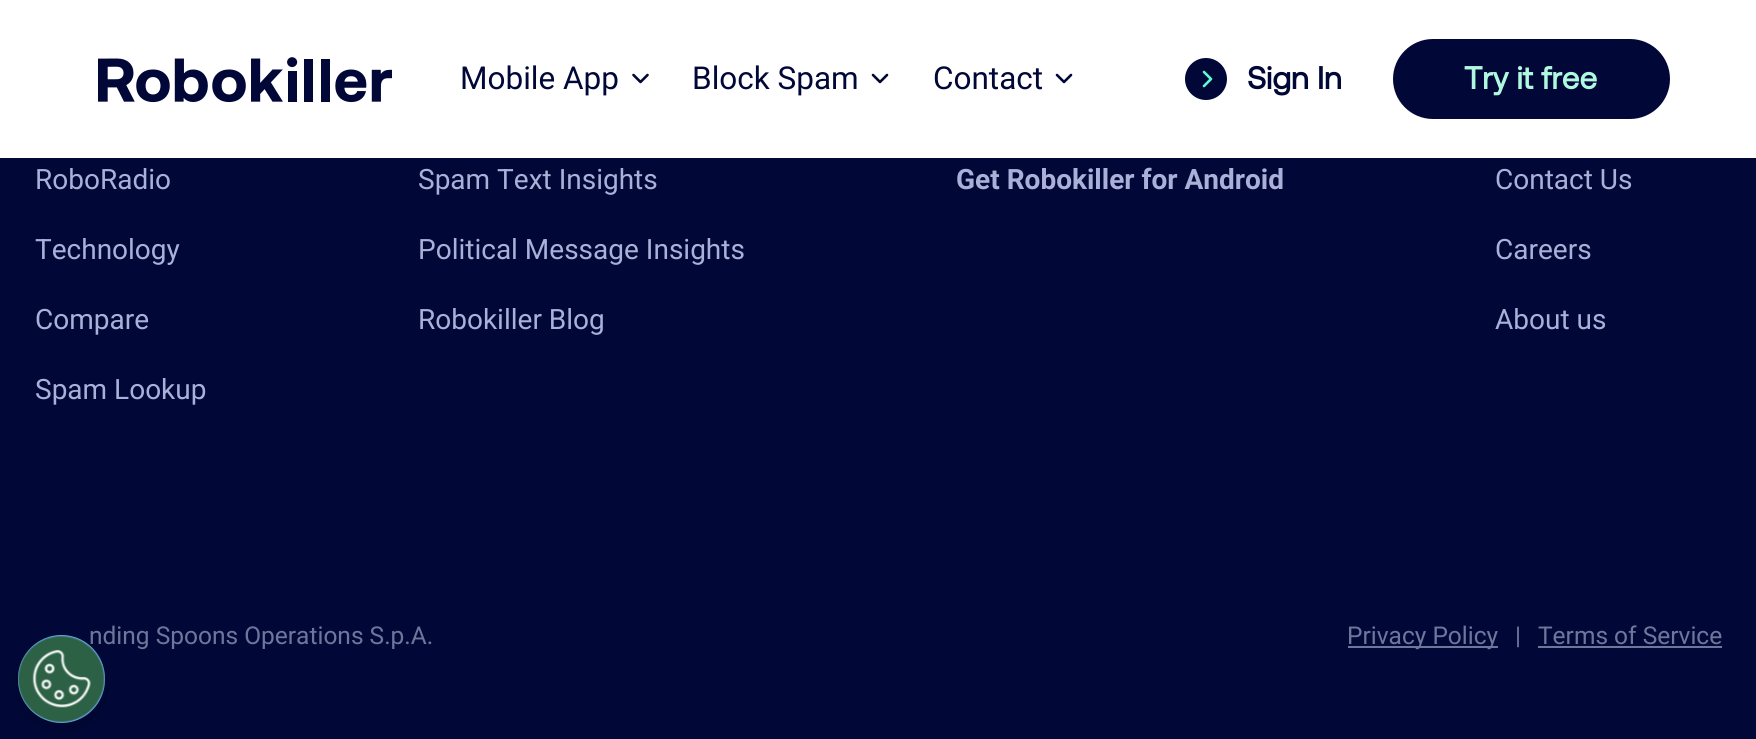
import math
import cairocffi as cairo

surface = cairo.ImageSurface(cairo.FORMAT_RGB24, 1756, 739)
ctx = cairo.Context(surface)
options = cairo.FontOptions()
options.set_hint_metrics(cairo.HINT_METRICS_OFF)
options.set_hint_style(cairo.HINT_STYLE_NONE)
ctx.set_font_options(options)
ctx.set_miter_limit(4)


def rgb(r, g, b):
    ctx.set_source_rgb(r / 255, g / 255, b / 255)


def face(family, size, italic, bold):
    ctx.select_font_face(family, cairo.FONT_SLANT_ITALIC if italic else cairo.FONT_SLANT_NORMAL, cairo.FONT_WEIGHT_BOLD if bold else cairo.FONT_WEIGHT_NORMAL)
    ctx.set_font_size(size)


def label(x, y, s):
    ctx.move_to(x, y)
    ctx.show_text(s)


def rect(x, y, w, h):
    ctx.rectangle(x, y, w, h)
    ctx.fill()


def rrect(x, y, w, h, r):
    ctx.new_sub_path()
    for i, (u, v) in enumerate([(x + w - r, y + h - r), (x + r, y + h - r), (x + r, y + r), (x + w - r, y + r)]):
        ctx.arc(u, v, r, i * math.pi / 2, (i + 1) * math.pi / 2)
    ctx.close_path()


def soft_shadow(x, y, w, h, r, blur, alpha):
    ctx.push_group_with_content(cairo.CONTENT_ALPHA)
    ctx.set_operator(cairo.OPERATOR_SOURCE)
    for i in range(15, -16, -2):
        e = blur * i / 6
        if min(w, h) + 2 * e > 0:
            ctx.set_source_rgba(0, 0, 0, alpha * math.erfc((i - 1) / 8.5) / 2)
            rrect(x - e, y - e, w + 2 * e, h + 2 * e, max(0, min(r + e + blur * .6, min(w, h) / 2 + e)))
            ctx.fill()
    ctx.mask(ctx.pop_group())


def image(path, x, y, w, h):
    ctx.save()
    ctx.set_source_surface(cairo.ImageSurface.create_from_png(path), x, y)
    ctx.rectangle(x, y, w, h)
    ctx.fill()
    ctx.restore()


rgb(1, 8, 56)
ctx.paint()
rgb(255, 255, 255)
rect(0, 0, 1756, 158)
image('image0.png', 98, 57, 294, 46)
face('Roboto', 31.5, 0, 0)
rgb(1, 8, 56)
label(460, 89, 'Mobile App')
ctx.new_path()
ctx.move_to(633.5, 75)
ctx.line_to(640.5, 82)
ctx.line_to(647.5, 75)
ctx.set_line_width(2.6)
ctx.set_line_cap(cairo.LINE_CAP_ROUND)
ctx.set_line_join(cairo.LINE_JOIN_ROUND)
ctx.stroke()
label(692, 89, 'Block Spam')
ctx.new_path()
ctx.move_to(873, 75)
ctx.line_to(880, 82)
ctx.line_to(887, 75)
ctx.stroke()
label(933, 89, 'Contact')
ctx.new_path()
ctx.move_to(1057, 75)
ctx.line_to(1064, 82)
ctx.line_to(1071, 75)
ctx.stroke()
ctx.arc(1206, 79, 21, 0, 2 * math.pi)
ctx.fill()
ctx.new_path()
ctx.move_to(1204, 86)
ctx.line_to(1211, 79)
ctx.line_to(1204, 72)
rgb(98, 249, 210)
ctx.stroke()
face('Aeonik', 31.5, 0, 1)
rgb(1, 8, 56)
label(1247, 89, 'Sign In')
rrect(1393, 39, 277, 80, 40)
ctx.fill()
rgb(176, 249, 224)
label(1464, 89, 'Try it free')
face('Roboto', 28, 0, 0)
rgb(170, 176, 216)
label(35, 189, 'RoboRadio')
label(35, 259, 'Technology')
label(35, 329, 'Compare')
label(35, 399, 'Spam Lookup')
label(418, 189, 'Spam Text Insights')
label(418, 259, 'Political Message Insights')
label(418, 329, 'Robokiller Blog')
face('Roboto', 28, 0, 1)
label(956, 189, 'Get Robokiller for Android')
face('Roboto', 28, 0, 0)
label(1495, 189, 'Contact Us')
label(1495, 259, 'Careers')
label(1495, 329, 'About us')
face('Roboto', 24.5, 0, 0)
rgb(112, 118, 155)
label(89, 644, 'nding Spoons Operations S.p.A.')
rect(1348, 646, 150, 2)
label(1347, 644, 'Privacy Policy')
label(1515, 644, '|')
label(1538, 644, 'Terms of Service')
rect(1538, 646, 184, 2)
rgb(0, 0, 0)
soft_shadow(18, 642, 87, 88, 43.5, 7, 0.2)
rgb(106, 170, 228)
rrect(18, 635, 87, 88, 43.5)
ctx.fill()
image('image1.png', 18, 635, 87, 88)
surface.write_to_png('render.png')
